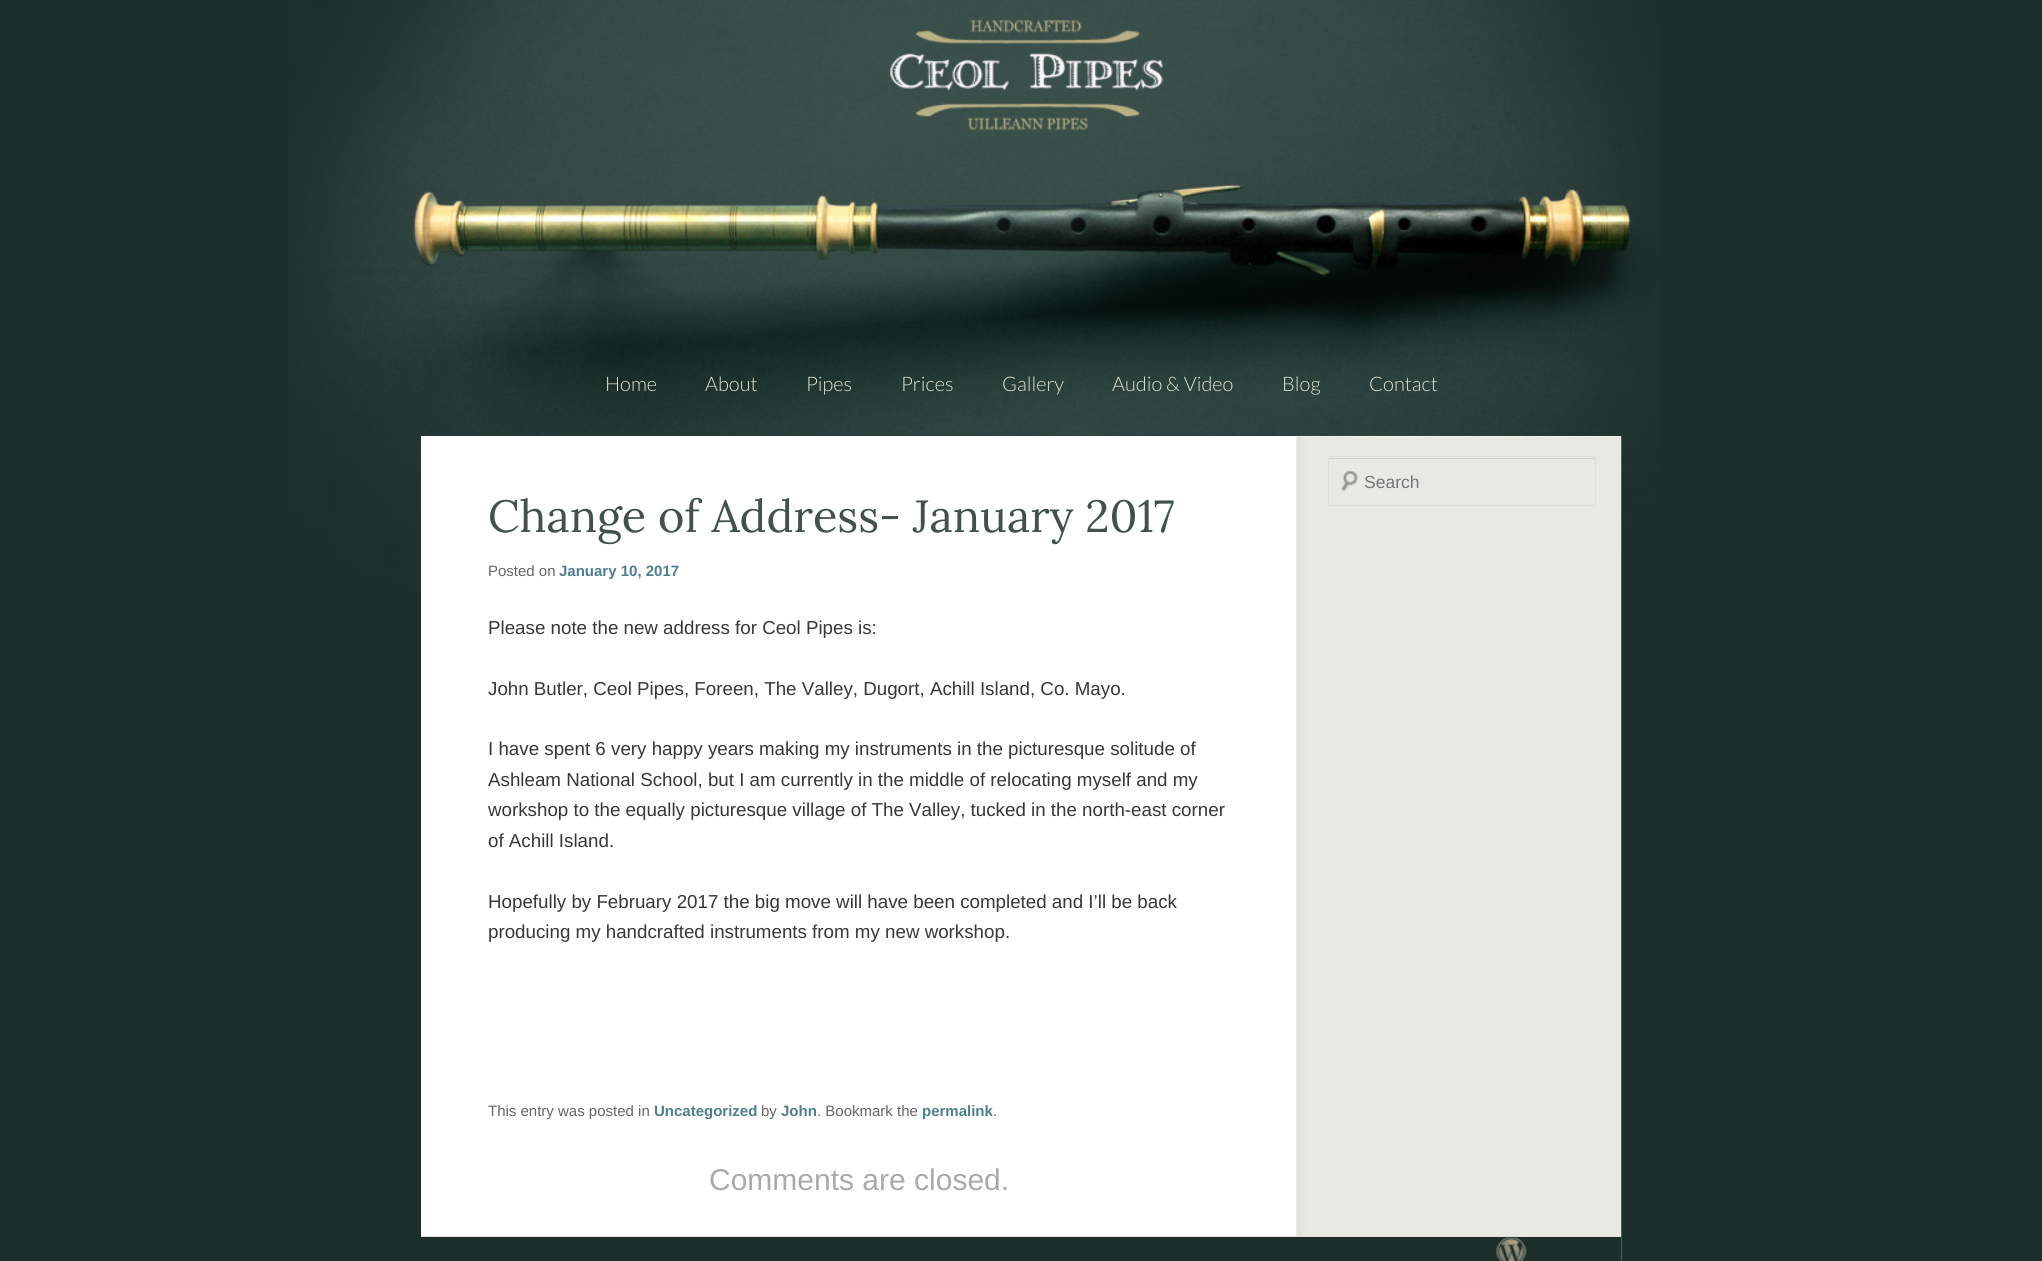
import math
import cairocffi as cairo

surface = cairo.ImageSurface(cairo.FORMAT_RGB24, 2042, 1261)
ctx = cairo.Context(surface)
options = cairo.FontOptions()
options.set_hint_metrics(cairo.HINT_METRICS_OFF)
options.set_hint_style(cairo.HINT_STYLE_NONE)
ctx.set_font_options(options)
ctx.set_miter_limit(4)


def rgb(r, g, b):
    ctx.set_source_rgb(r / 255, g / 255, b / 255)


def face(family, size, italic, bold):
    ctx.select_font_face(family, cairo.FONT_SLANT_ITALIC if italic else cairo.FONT_SLANT_NORMAL, cairo.FONT_WEIGHT_BOLD if bold else cairo.FONT_WEIGHT_NORMAL)
    ctx.set_font_size(size)


def label(x, y, s):
    ctx.move_to(x, y)
    ctx.show_text(s)


def rect(x, y, w, h):
    ctx.rectangle(x, y, w, h)
    ctx.fill()


def rrect(x, y, w, h, r):
    ctx.new_sub_path()
    for i, (u, v) in enumerate([(x + w - r, y + h - r), (x + r, y + h - r), (x + r, y + r), (x + w - r, y + r)]):
        ctx.arc(u, v, r, i * math.pi / 2, (i + 1) * math.pi / 2)
    ctx.close_path()


def image(path, x, y, w, h):
    ctx.save()
    ctx.set_source_surface(cairo.ImageSurface.create_from_png(path), x, y)
    ctx.rectangle(x, y, w, h)
    ctx.fill()
    ctx.restore()


rgb(28, 47, 43)
ctx.paint()
image('image0.png', 288, 0, 1372, 610)
face('Lato Light', 20, 0, 0)
rgb(224, 227, 207)
label(605, 391, 'Home')
label(705, 391, 'About')
label(806, 391, 'Pipes')
label(901, 391, 'Prices')
label(1002, 391, 'Gallery')
label(1112, 391, 'Audio & Video')
label(1282, 391, 'Blog')
label(1369, 391, 'Contact')
rgb(255, 255, 255)
rect(421, 436, 1200, 800)
image('image2.png', 1296, 436, 326, 825)
image('image1.png', 1341, 470, 17, 22)
rgb(210, 210, 205)
ctx.new_path()
ctx.move_to(1330, 459)
ctx.line_to(1594, 459)
ctx.line_to(1595, 460)
ctx.line_to(1595, 458)
ctx.line_to(1330, 458)
ctx.curve_to(1329, 458, 1329, 459, 1329, 460)
ctx.curve_to(1329, 459, 1329, 459, 1330, 459)
ctx.close_path()
ctx.fill()
rrect(1328.5, 456.5, 267, 49, 2)
rgb(221, 221, 221)
ctx.set_line_width(1)
ctx.stroke()
face('Liberation Sans', 17.5, 0, 0)
rgb(117, 117, 117)
label(1364, 488, 'Search')
face('Lora', 45, 0, 0)
rgb(65, 82, 75)
label(488, 532, 'Change of Address- January 2017')
face('Liberation Sans', 15, 0, 0)
rgb(102, 102, 102)
label(488, 576, 'Posted on')
face('Liberation Sans', 15, 0, 1)
rgb(78, 127, 143)
label(559, 576, 'January 10, 2017')
face('Liberation Sans', 18.75, 0, 0)
rgb(55, 55, 55)
label(488, 634, 'Please note the new address for Ceol Pipes is:')
label(488, 695, 'John Butler, Ceol Pipes, Foreen, The Valley, Dugort, Achill Island, Co. Mayo.')
label(488, 755, 'I have spent 6 very happy years making my instruments in the picturesque solitude of')
label(488, 786, 'Ashleam National School, but I am currently in the middle of relocating myself and my')
label(488, 816, 'workshop to the equally picturesque village of The Valley, tucked in the north-east corner')
label(488, 847, 'of Achill Island.')
label(488, 908, 'Hopefully by February 2017 the big move will have been completed and I’ll be back')
label(488, 938, 'producing my handcrafted instruments from my new workshop.')
face('Liberation Sans', 15, 0, 0)
rgb(102, 102, 102)
label(488, 1116, 'This entry was posted in')
face('Liberation Sans', 15, 0, 1)
rgb(78, 127, 143)
label(654, 1116, 'Uncategorized')
face('Liberation Sans', 15, 0, 0)
rgb(102, 102, 102)
label(761, 1116, 'by')
face('Liberation Sans', 15, 0, 1)
rgb(78, 127, 143)
label(781, 1116, 'John')
face('Liberation Sans', 15, 0, 0)
rgb(102, 102, 102)
label(817, 1116, '. Bookmark the')
face('Liberation Sans', 15, 0, 1)
rgb(78, 127, 143)
label(922, 1116, 'permalink')
face('Liberation Sans', 15, 0, 0)
rgb(102, 102, 102)
label(993, 1116, '.')
face('Liberation Sans', 30, 0, 0)
rgb(170, 170, 170)
label(709, 1190, 'Comments are closed.')
rgb(28, 47, 43)
rect(1296, 1237, 325, 24)
rgb(221, 221, 221)
rect(421, 1236, 1200, 1)
image('image3.png', 1496, 1237, 31, 24)
surface.write_to_png('render.png')
